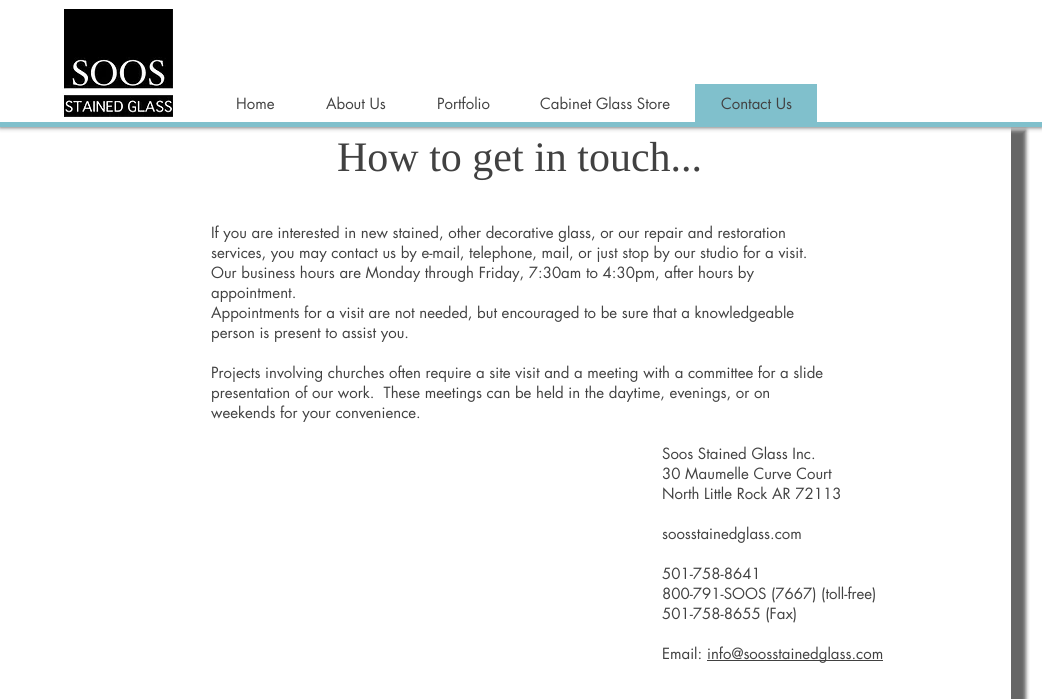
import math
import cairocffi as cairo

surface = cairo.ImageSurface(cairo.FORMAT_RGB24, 1042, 699)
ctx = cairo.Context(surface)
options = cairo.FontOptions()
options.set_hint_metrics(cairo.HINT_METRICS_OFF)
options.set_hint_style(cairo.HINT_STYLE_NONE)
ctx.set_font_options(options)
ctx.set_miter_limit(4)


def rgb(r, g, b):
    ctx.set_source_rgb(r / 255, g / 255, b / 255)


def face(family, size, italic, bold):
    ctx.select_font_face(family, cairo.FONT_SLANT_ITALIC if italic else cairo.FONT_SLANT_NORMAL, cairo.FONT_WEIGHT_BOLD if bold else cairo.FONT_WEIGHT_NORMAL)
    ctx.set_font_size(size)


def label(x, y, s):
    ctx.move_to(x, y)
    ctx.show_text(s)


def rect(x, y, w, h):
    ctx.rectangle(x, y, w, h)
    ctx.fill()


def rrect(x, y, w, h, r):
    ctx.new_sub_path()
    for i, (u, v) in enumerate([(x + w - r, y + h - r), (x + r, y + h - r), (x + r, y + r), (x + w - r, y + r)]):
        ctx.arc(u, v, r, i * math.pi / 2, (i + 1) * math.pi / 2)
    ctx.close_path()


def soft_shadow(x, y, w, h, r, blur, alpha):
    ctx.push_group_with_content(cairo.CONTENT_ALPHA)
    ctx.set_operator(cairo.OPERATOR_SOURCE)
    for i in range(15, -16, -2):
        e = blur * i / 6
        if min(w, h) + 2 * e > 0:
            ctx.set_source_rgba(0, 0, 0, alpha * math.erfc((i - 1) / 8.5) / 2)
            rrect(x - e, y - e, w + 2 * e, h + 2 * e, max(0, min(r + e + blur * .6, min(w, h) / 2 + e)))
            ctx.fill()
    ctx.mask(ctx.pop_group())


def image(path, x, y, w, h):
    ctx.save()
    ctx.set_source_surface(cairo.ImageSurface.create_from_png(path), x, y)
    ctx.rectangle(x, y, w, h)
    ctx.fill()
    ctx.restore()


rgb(255, 255, 255)
ctx.paint()
rgb(0, 0, 0)
soft_shadow(0, 0, 1042, 127, 0, 2.5, 0.7)
rgb(255, 255, 255)
rect(0, 0, 1042, 122)
ctx.save()
ctx.rectangle(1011, 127, 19, 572)
ctx.clip()
rgb(0, 0, 0)
soft_shadow(46, 130, 980, 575, 0, 2, 0.6)
ctx.restore()
rgb(128, 192, 204)
rect(0, 122, 1042, 5)
image('image0.png', 62, 9, 111, 108)
face('futura', 15, 0, 0)
rgb(65, 65, 65)
label(236, 109, 'Home')
label(326, 109, 'About Us')
label(437, 109, 'Portfolio')
label(540, 109, 'Cabinet Glass Store')
rgb(128, 192, 204)
rect(695, 84, 122, 38)
rgb(65, 65, 65)
label(721, 109, 'Contact Us')
face('Liberation Serif', 42, 0, 0)
label(337, 171, 'How to get in touch...')
face('futura', 15, 0, 0)
label(211, 238, 'If you are interested in new stained, other decorative glass, or our repair and restoration')
label(211, 258, 'services, you may contact us by e-mail, telephone, mail, or just stop by our studio for a visit.')
label(211, 278, 'Our business hours are Monday through Friday, 7:30am to 4:30pm, after hours by')
label(211, 298, 'appointment.')
label(211, 318, 'Appointments for a visit are not needed, but encouraged to be sure that a knowledgeable')
label(211, 338, 'person is present to assist you.')
label(211, 378, 'Projects involving churches often require a site visit and a meeting with a committee for a slide')
label(211, 398, 'presentation of our work.  These meetings can be held in the daytime, evenings, or on')
label(211, 418, 'weekends for your convenience.')
label(662, 459, 'Soos Stained Glass Inc.')
label(662, 479, '30 Maumelle Curve Court')
label(662, 499, 'North Little Rock AR 72113')
label(662, 539, 'soosstainedglass.com')
label(662, 579, '501-758-8641')
label(662, 599, '800-791-SOOS (7667) (toll-free)')
label(662, 619, '501-758-8655 (Fax)')
label(662, 659, 'Email:')
rect(707, 660, 176, 1)
label(707, 659, 'info@soosstainedglass.com')
surface.write_to_png('render.png')
